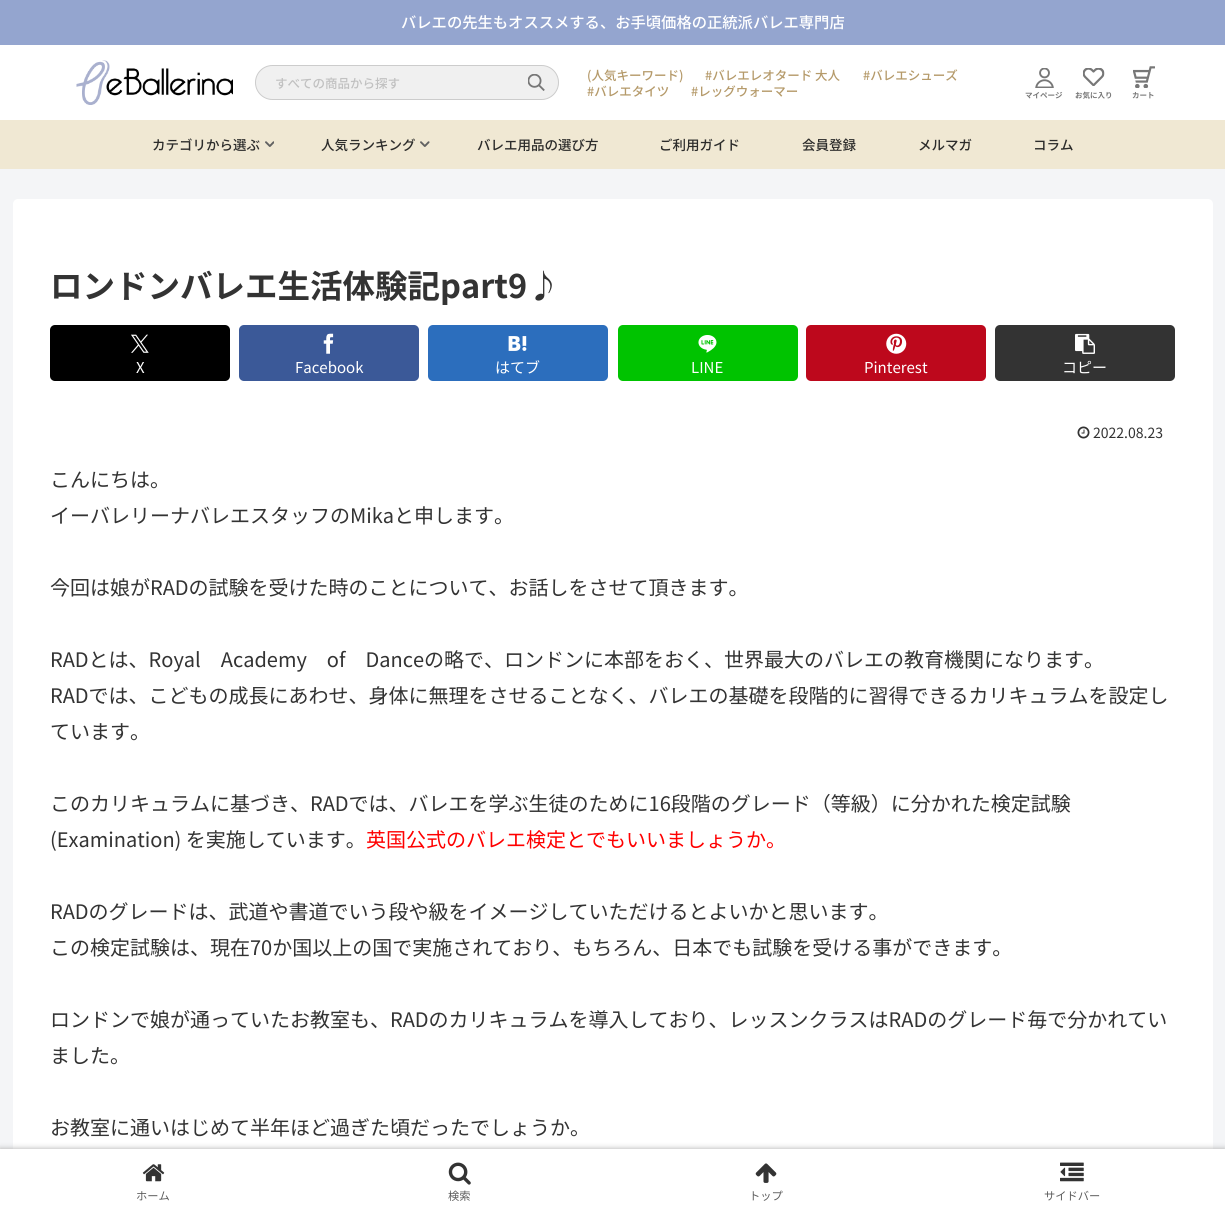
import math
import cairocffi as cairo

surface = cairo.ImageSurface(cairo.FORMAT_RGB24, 1225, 1211)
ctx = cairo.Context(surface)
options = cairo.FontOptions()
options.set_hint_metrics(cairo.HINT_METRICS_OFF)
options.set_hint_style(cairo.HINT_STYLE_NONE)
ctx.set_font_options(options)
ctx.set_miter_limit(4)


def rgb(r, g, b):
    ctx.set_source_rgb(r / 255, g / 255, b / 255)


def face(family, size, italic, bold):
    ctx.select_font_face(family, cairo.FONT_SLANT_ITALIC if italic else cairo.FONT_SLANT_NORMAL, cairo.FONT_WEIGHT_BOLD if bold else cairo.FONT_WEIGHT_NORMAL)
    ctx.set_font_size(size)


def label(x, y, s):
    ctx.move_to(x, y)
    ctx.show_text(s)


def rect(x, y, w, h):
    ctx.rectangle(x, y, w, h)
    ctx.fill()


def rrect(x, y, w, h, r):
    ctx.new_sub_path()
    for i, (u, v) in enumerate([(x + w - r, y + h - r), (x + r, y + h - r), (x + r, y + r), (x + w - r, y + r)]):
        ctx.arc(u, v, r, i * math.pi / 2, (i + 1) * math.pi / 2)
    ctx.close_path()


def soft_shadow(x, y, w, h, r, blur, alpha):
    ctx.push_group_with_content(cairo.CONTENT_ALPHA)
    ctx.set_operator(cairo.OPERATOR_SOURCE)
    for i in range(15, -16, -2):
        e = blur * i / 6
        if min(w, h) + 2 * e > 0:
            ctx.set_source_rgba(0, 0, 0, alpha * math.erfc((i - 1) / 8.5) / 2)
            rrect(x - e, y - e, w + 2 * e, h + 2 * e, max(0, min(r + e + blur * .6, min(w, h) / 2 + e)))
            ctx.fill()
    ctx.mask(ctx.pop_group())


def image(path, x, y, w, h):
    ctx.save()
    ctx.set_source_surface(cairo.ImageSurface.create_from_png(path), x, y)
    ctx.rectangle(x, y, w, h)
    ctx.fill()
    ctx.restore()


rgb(244, 245, 247)
ctx.paint()
rgb(255, 255, 255)
rect(0, 45, 1225, 75)
rgb(148, 165, 207)
rect(0, 0, 1225, 45)
face('Noto Sans JP Medium', 15.3, 0, 0)
rgb(255, 255, 255)
label(401, 28, 'バレエの先生もオススメする、お手頃価格の正統派バレエ専門店')
image('image0.png', 76, 60, 157, 45)
image('image1.png', 1035, 68, 19, 20)
face('Noto Sans JP', 7.5, 0, 1)
rgb(119, 119, 119)
label(1025, 98, 'マイページ')
image('image2.png', 1083, 68, 22, 18)
label(1075, 98, 'お気に入り')
image('image3.png', 1133, 66, 22, 22)
label(1132, 98, 'カート')
rgb(240, 240, 240)
rrect(255.5, 65.5, 303, 34, 17)
ctx.fill_preserve()
rgb(204, 204, 204)
ctx.set_line_width(1)
ctx.stroke()
face('Noto Sans JP Medium', 12.5, 0, 0)
rgb(193, 193, 193)
label(275, 88, 'すべての商品から探す')
image('image4.png', 528, 74, 17, 17)
rgb(181, 154, 106)
label(587, 80, '(人気キーワード)')
label(705, 80, '#バレエレオタード 大人')
label(863, 80, '#バレエシューズ')
label(587, 96, '#バレエタイツ')
label(691, 96, '#レッグウォーマー')
rgb(240, 232, 211)
rect(0, 120, 1225, 49)
face('Noto Sans JP Medium', 13.5, 0, 0)
rgb(44, 44, 43)
label(152, 150, 'カテゴリから選ぶ')
image('image5.png', 265, 141, 9, 6)
label(321, 150, '人気ランキング')
image('image6.png', 420, 141, 10, 6)
label(477, 150, 'バレエ用品の選び方')
label(659, 150, 'ご利用ガイド')
label(802, 150, '会員登録')
label(918, 150, 'メルマガ')
label(1033, 150, 'コラム')
rgb(255, 255, 255)
rrect(13, 199, 1200, 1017, 5)
ctx.fill()
face('Noto Sans JP', 32.5, 0, 1)
rgb(51, 51, 51)
label(50, 298, 'ロンドンバレエ生活体験記part9♪')
rgb(0, 0, 0)
rrect(50, 325, 180, 56, 5)
ctx.fill()
image('image7.png', 131, 334, 18, 19)
face('Noto Sans JP', 15, 0, 0)
rgb(255, 255, 255)
label(136, 373, 'X')
rgb(59, 89, 152)
rrect(239, 325, 180, 56, 5)
ctx.fill()
image('image8.png', 323, 333, 11, 21)
rgb(255, 255, 255)
label(295, 373, 'Facebook')
rgb(44, 110, 189)
rrect(428, 325, 180, 56, 5)
ctx.fill()
image('image9.png', 508, 336, 19, 15)
rgb(255, 255, 255)
label(495, 373, 'はてブ')
rgb(0, 195, 0)
rrect(618, 325, 180, 56, 5)
ctx.fill()
image('image10.png', 698, 335, 19, 18)
rgb(255, 255, 255)
label(691, 373, 'LINE')
rgb(189, 8, 28)
rrect(806, 325, 180, 56, 5)
ctx.fill()
image('image11.png', 886, 333, 21, 21)
rgb(255, 255, 255)
label(864, 373, 'Pinterest')
rgb(51, 51, 51)
rrect(995, 325, 180, 56, 5)
ctx.fill()
image('image12.png', 1075, 333, 20, 21)
rgb(255, 255, 255)
label(1062, 373, 'コピー')
image('image13.png', 1077, 426, 13, 13)
face('Noto Sans JP', 14, 0, 0)
rgb(51, 51, 51)
label(1093, 438, '2022.08.23')
face('Noto Sans JP', 20, 0, 0)
label(50, 487, 'こんにちは。')
label(50, 523, 'イーバレリーナバレエスタッフのMikaと申します。')
label(50, 595, '今回は娘がRADの試験を受けた時のことについて、お話しをさせて頂きます。')
label(50, 667, 'RADとは、Royal　Academy　of　Danceの略で、ロンドンに本部をおく、世界最大のバレエの教育機関になります。')
label(50, 703, 'RADでは、こどもの成長にあわせ、身体に無理をさせることなく、バレエの基礎を段階的に習得できるカリキュラムを設定し')
label(50, 739, 'ています。')
label(50, 811, 'このカリキュラムに基づき、RADでは、バレエを学ぶ生徒のために16段階のグレード（等級）に分かれた検定試験')
label(50, 847, '(Examination) を実施しています。')
rgb(255, 0, 0)
label(366, 847, '英国公式のバレエ検定とでもいいましょうか。')
rgb(51, 51, 51)
label(50, 919, 'RADのグレードは、武道や書道でいう段や級をイメージしていただけるとよいかと思います。')
label(50, 955, 'この検定試験は、現在70か国以上の国で実施されており、もちろん、日本でも試験を受ける事ができます。')
label(50, 1027, 'ロンドンで娘が通っていたお教室も、RADのカリキュラムを導入しており、レッスンクラスはRADのグレード毎で分かれてい')
label(50, 1063, 'ました。')
label(50, 1135, 'お教室に通いはじめて半年ほど過ぎた頃だったでしょうか。')
rgb(169, 169, 169)
soft_shadow(0, 1149, 1225, 62, 0, 3, 1)
rgb(255, 255, 255)
rect(0, 1149, 1225, 62)
image('image14.png', 142, 1164, 23, 18)
face('Noto Sans JP', 11.25, 0, 0)
rgb(92, 92, 92)
label(136, 1200, 'ホーム')
image('image15.png', 448, 1162, 23, 23)
label(448, 1200, '検索')
image('image16.png', 755, 1163, 22, 20)
label(749, 1200, 'トップ')
image('image17.png', 1060, 1162, 24, 20)
label(1044, 1200, 'サイドバー')
surface.write_to_png('render.png')
